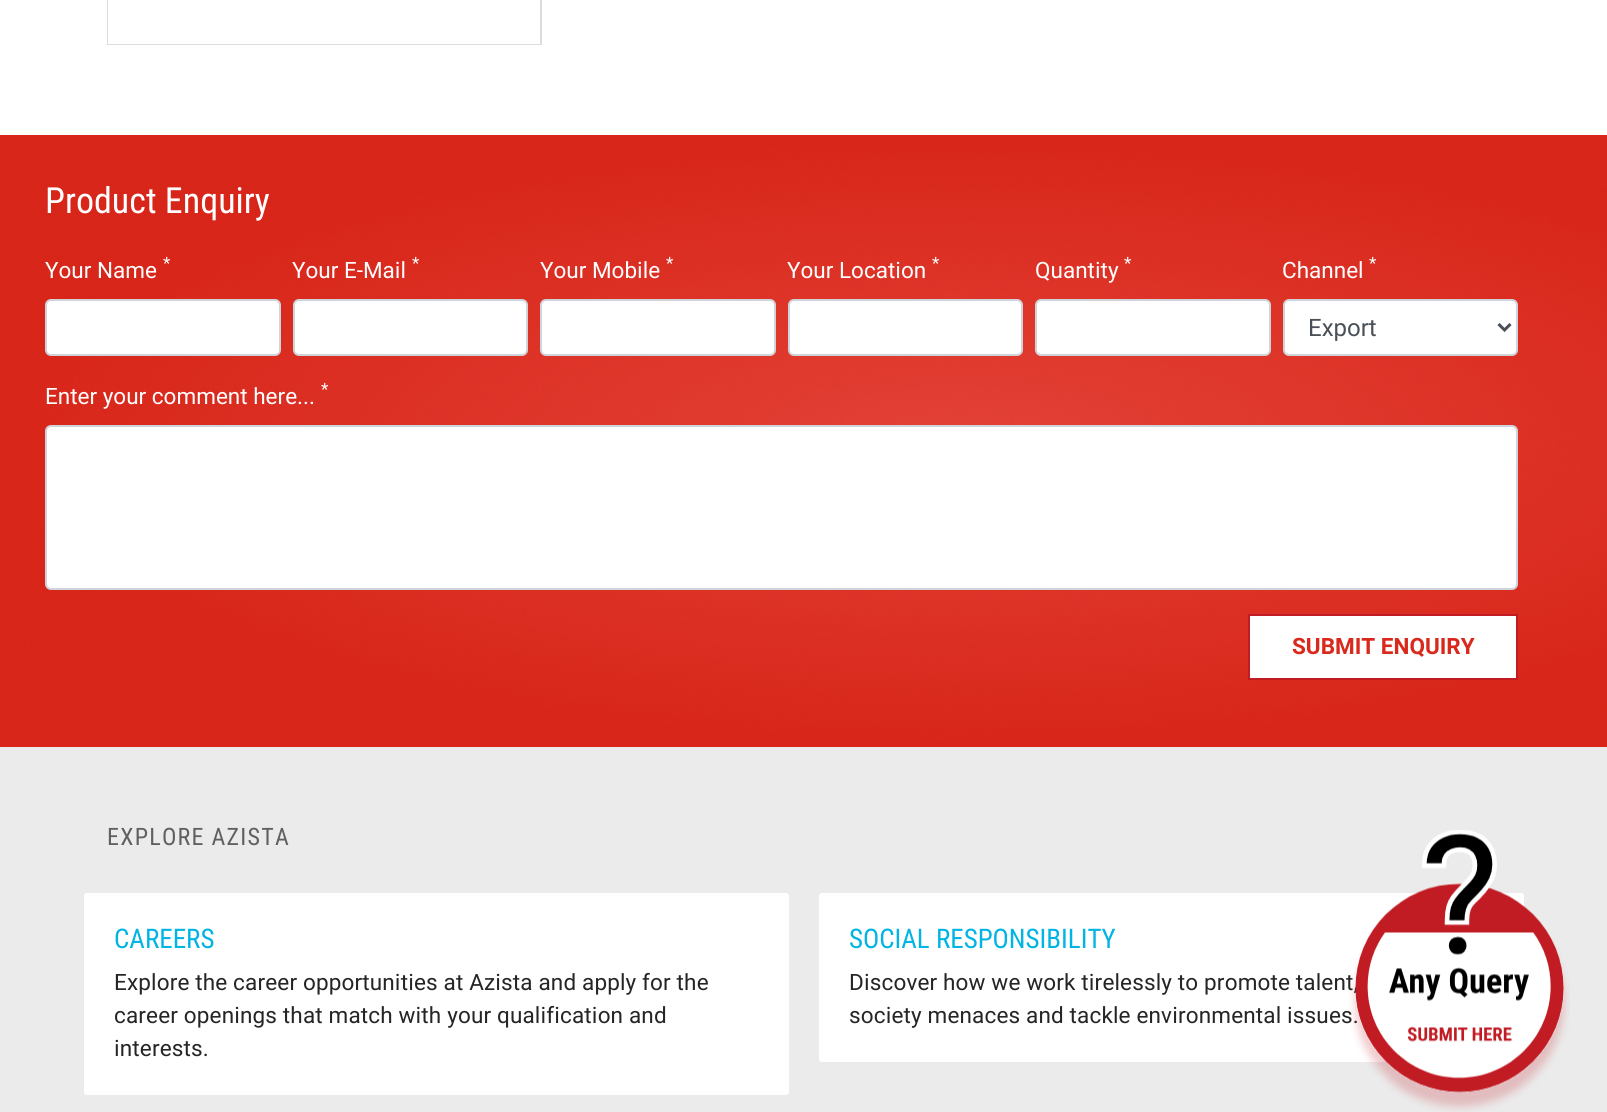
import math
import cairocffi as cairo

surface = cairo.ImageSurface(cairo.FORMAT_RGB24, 1607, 1112)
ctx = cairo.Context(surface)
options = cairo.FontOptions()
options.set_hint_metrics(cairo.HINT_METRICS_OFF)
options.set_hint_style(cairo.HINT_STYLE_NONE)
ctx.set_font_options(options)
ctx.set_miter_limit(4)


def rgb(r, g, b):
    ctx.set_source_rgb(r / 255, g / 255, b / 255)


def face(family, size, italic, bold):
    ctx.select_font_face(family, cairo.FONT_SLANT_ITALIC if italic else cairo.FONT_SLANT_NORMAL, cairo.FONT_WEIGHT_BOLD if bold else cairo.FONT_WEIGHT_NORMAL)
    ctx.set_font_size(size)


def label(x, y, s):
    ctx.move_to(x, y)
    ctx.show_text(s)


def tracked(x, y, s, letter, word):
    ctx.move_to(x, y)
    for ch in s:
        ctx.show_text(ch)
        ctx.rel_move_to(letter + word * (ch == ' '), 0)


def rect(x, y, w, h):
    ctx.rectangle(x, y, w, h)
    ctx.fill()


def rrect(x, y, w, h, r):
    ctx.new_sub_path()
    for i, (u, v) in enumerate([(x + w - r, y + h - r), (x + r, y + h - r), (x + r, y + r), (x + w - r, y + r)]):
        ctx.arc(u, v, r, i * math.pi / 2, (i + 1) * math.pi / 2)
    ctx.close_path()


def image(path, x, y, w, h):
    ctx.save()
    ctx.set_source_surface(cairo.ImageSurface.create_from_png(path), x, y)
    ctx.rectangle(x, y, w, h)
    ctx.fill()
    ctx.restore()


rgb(255, 255, 255)
ctx.paint()
ctx.rectangle(108, -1, 433, 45)
rgb(221, 221, 221)
ctx.stroke()
rgb(255, 255, 255)
rect(108, 0, 432, 44)
image('image0.png', 0, 135, 1607, 612)
face('Roboto Condensed', 36, 0, 0)
label(45, 213, 'Product Enquiry')
face('Heebo', 17, 0, 0)
label(163, 269, '*')
face('Heebo', 22.5, 0, 0)
label(45, 278, 'Your Name')
rrect(46, 300, 234, 55, 5)
ctx.fill_preserve()
rgb(206, 212, 218)
ctx.stroke()
rgb(255, 255, 255)
label(292, 278, 'Your E-Mail')
face('Heebo', 17, 0, 0)
label(412, 269, '*')
rrect(294, 300, 233, 55, 5)
ctx.fill_preserve()
rgb(206, 212, 218)
ctx.stroke()
face('Heebo', 22.5, 0, 0)
rgb(255, 255, 255)
label(540, 278, 'Your Mobile')
face('Heebo', 17, 0, 0)
label(666, 269, '*')
rrect(541, 300, 234, 55, 5)
ctx.fill_preserve()
rgb(206, 212, 218)
ctx.stroke()
face('Heebo', 22.5, 0, 0)
rgb(255, 255, 255)
label(787, 278, 'Your Location')
face('Heebo', 17, 0, 0)
label(932, 269, '*')
rrect(789, 300, 233, 55, 5)
ctx.fill_preserve()
rgb(206, 212, 218)
ctx.stroke()
face('Heebo', 22.5, 0, 0)
rgb(255, 255, 255)
label(1035, 278, 'Quantity')
face('Heebo', 17, 0, 0)
label(1124, 269, '*')
rrect(1036, 300, 234, 55, 5)
ctx.fill_preserve()
rgb(206, 212, 218)
ctx.stroke()
face('Heebo', 22.5, 0, 0)
rgb(255, 255, 255)
label(1282, 278, 'Channel')
face('Heebo', 17, 0, 0)
label(1369, 269, '*')
rrect(1284, 300, 233, 55, 5)
ctx.fill_preserve()
rgb(206, 212, 218)
ctx.stroke()
ctx.new_path()
ctx.move_to(1498.5, 324)
ctx.line_to(1504.5, 330)
ctx.line_to(1510.5, 324)
rgb(73, 80, 87)
ctx.set_line_width(3)
ctx.stroke()
face('Heebo', 24, 0, 0)
label(1308, 336, 'Export')
face('Heebo', 22.5, 0, 0)
rgb(255, 255, 255)
label(45, 404, 'Enter your comment here...')
face('Heebo', 17, 0, 0)
label(321, 395, '*')
rrect(46, 426, 1471, 163, 5)
ctx.fill_preserve()
rgb(206, 212, 218)
ctx.set_line_width(2)
ctx.stroke()
rgb(255, 255, 255)
ctx.rectangle(1249, 615, 268, 64)
ctx.fill_preserve()
rgb(193, 27, 35)
ctx.stroke()
face('Heebo', 22.5, 0, 1)
rgb(217, 41, 29)
label(1292, 654, 'SUBMIT ENQUIRY')
rgb(235, 235, 235)
rect(0, 747, 1607, 365)
rgb(255, 255, 255)
rrect(819, 893, 705, 169, 3)
ctx.fill()
face('Heebo', 22.5, 0, 0)
rgb(37, 37, 37)
tracked(849, 990, 'Discover how we work tirelessly to promote talent,', 0.15, 0)
tracked(849, 1023, 'society menaces and tackle environmental issues.', 0.15, 0)
image('image1.png', 1349, 830, 221, 282)
face('Roboto Condensed', 24, 0, 0)
rgb(96, 96, 96)
tracked(107, 845, 'EXPLORE AZISTA', 1.25, 0)
rgb(255, 255, 255)
rrect(84, 893, 705, 202, 3)
ctx.fill()
face('Roboto Condensed', 27, 0, 0)
rgb(0, 180, 228)
label(114, 948, 'CAREERS')
face('Heebo', 22.5, 0, 0)
rgb(37, 37, 37)
tracked(114, 990, 'Explore the career opportunities at Azista and apply for the', 0.15, 0)
tracked(114, 1023, 'career openings that match with your qualification and', 0.15, 0)
tracked(114, 1056, 'interests.', 0.15, 0)
face('Roboto Condensed', 27, 0, 0)
rgb(0, 180, 228)
label(849, 948, 'SOCIAL RESPONSIBILITY')
surface.write_to_png('render.png')
